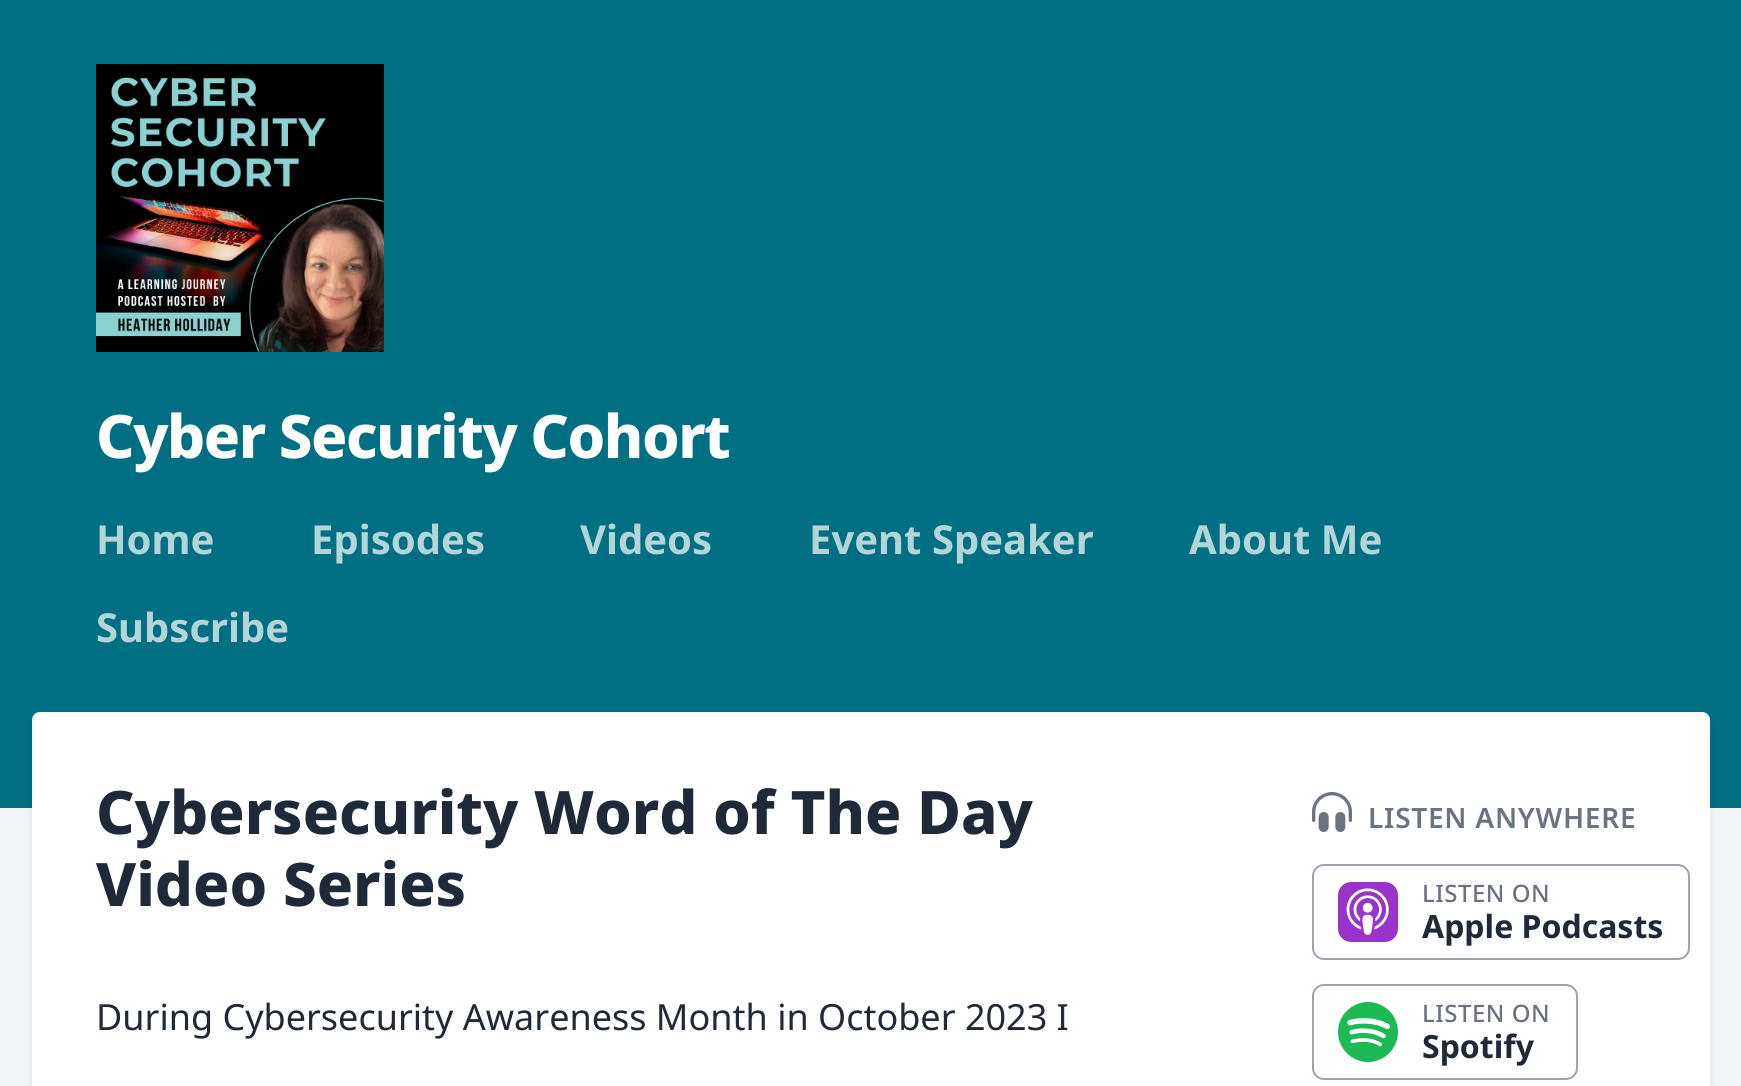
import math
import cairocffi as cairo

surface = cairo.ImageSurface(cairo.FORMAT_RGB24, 1741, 1086)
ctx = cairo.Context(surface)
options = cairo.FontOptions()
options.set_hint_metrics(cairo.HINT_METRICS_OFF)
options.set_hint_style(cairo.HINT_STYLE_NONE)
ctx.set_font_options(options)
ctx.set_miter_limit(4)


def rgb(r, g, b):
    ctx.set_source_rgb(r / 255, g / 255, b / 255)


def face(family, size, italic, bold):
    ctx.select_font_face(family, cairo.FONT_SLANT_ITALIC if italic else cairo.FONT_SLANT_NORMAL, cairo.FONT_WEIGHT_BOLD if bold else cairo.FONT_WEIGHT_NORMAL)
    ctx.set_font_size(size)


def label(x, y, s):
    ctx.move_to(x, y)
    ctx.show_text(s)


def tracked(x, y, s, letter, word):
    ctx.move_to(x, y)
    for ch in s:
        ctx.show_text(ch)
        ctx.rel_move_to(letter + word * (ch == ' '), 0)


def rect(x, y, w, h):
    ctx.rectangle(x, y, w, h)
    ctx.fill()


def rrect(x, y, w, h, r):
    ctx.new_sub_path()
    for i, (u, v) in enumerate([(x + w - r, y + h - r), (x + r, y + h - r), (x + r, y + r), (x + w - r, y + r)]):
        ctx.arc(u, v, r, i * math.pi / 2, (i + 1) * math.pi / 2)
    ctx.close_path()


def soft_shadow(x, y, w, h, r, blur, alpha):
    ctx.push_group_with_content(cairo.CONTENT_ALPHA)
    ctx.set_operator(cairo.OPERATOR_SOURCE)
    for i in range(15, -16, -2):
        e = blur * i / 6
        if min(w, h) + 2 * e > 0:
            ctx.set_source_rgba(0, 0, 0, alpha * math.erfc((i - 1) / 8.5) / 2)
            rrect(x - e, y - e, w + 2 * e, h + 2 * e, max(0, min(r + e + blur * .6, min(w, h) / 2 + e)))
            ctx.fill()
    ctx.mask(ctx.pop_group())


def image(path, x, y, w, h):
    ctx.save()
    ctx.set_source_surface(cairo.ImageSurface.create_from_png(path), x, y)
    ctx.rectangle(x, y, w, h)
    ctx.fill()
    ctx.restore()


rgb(241, 245, 249)
ctx.paint()
rgb(0, 111, 129)
rect(0, 0, 1741, 808)
image('image0.png', 96, 64, 288, 288)
face('Noto Sans ExtraBold', 60, 0, 0)
rgb(255, 255, 255)
tracked(96, 458, 'Cyber Security Cohort', -1.5, 0)
face('Noto Sans', 40, 0, 1)
rgb(179, 212, 217)
label(96, 554, 'Home')
label(311, 554, 'Episodes')
label(580, 554, 'Videos')
label(809, 554, 'Event Speaker')
label(1189, 554, 'About Me')
label(96, 642, 'Subscribe')
rgb(0, 0, 0)
soft_shadow(34, 722, 1674, 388, 6, 6, 0.1)
rgb(255, 255, 255)
rrect(32, 712, 1678, 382, 8)
ctx.fill()
face('Noto Sans ExtraBold', 60, 0, 0)
rgb(31, 41, 55)
label(96, 834, 'Cybersecurity Word of The Day')
label(96, 906, 'Video Series')
face('Noto Sans', 36, 0, 0)
label(96, 1030, 'During Cybersecurity Awareness Month in October 2023 I')
image('image1.png', 1312, 792, 40, 40)
face('Noto Sans SemiBold', 28, 0, 0)
rgb(107, 114, 128)
tracked(1368, 828, 'LISTEN ANYWHERE', 0.75, 0)
rrect(1313, 865, 376, 94, 11)
rgb(156, 163, 175)
ctx.stroke()
image('image2.png', 1338, 882, 60, 60)
face('Noto Sans Medium', 24, 0, 0)
rgb(107, 114, 128)
tracked(1422, 902, 'LISTEN ON', 0.5, 0)
face('Noto Sans', 32, 0, 1)
rgb(31, 41, 55)
label(1422, 938, 'Apple Podcasts')
rrect(1313, 985, 264, 94, 11)
rgb(156, 163, 175)
ctx.stroke()
image('image3.png', 1338, 1002, 60, 60)
face('Noto Sans Medium', 24, 0, 0)
rgb(107, 114, 128)
tracked(1422, 1022, 'LISTEN ON', 0.5, 0)
face('Noto Sans', 32, 0, 1)
rgb(31, 41, 55)
label(1422, 1058, 'Spotify')
surface.write_to_png('render.png')
